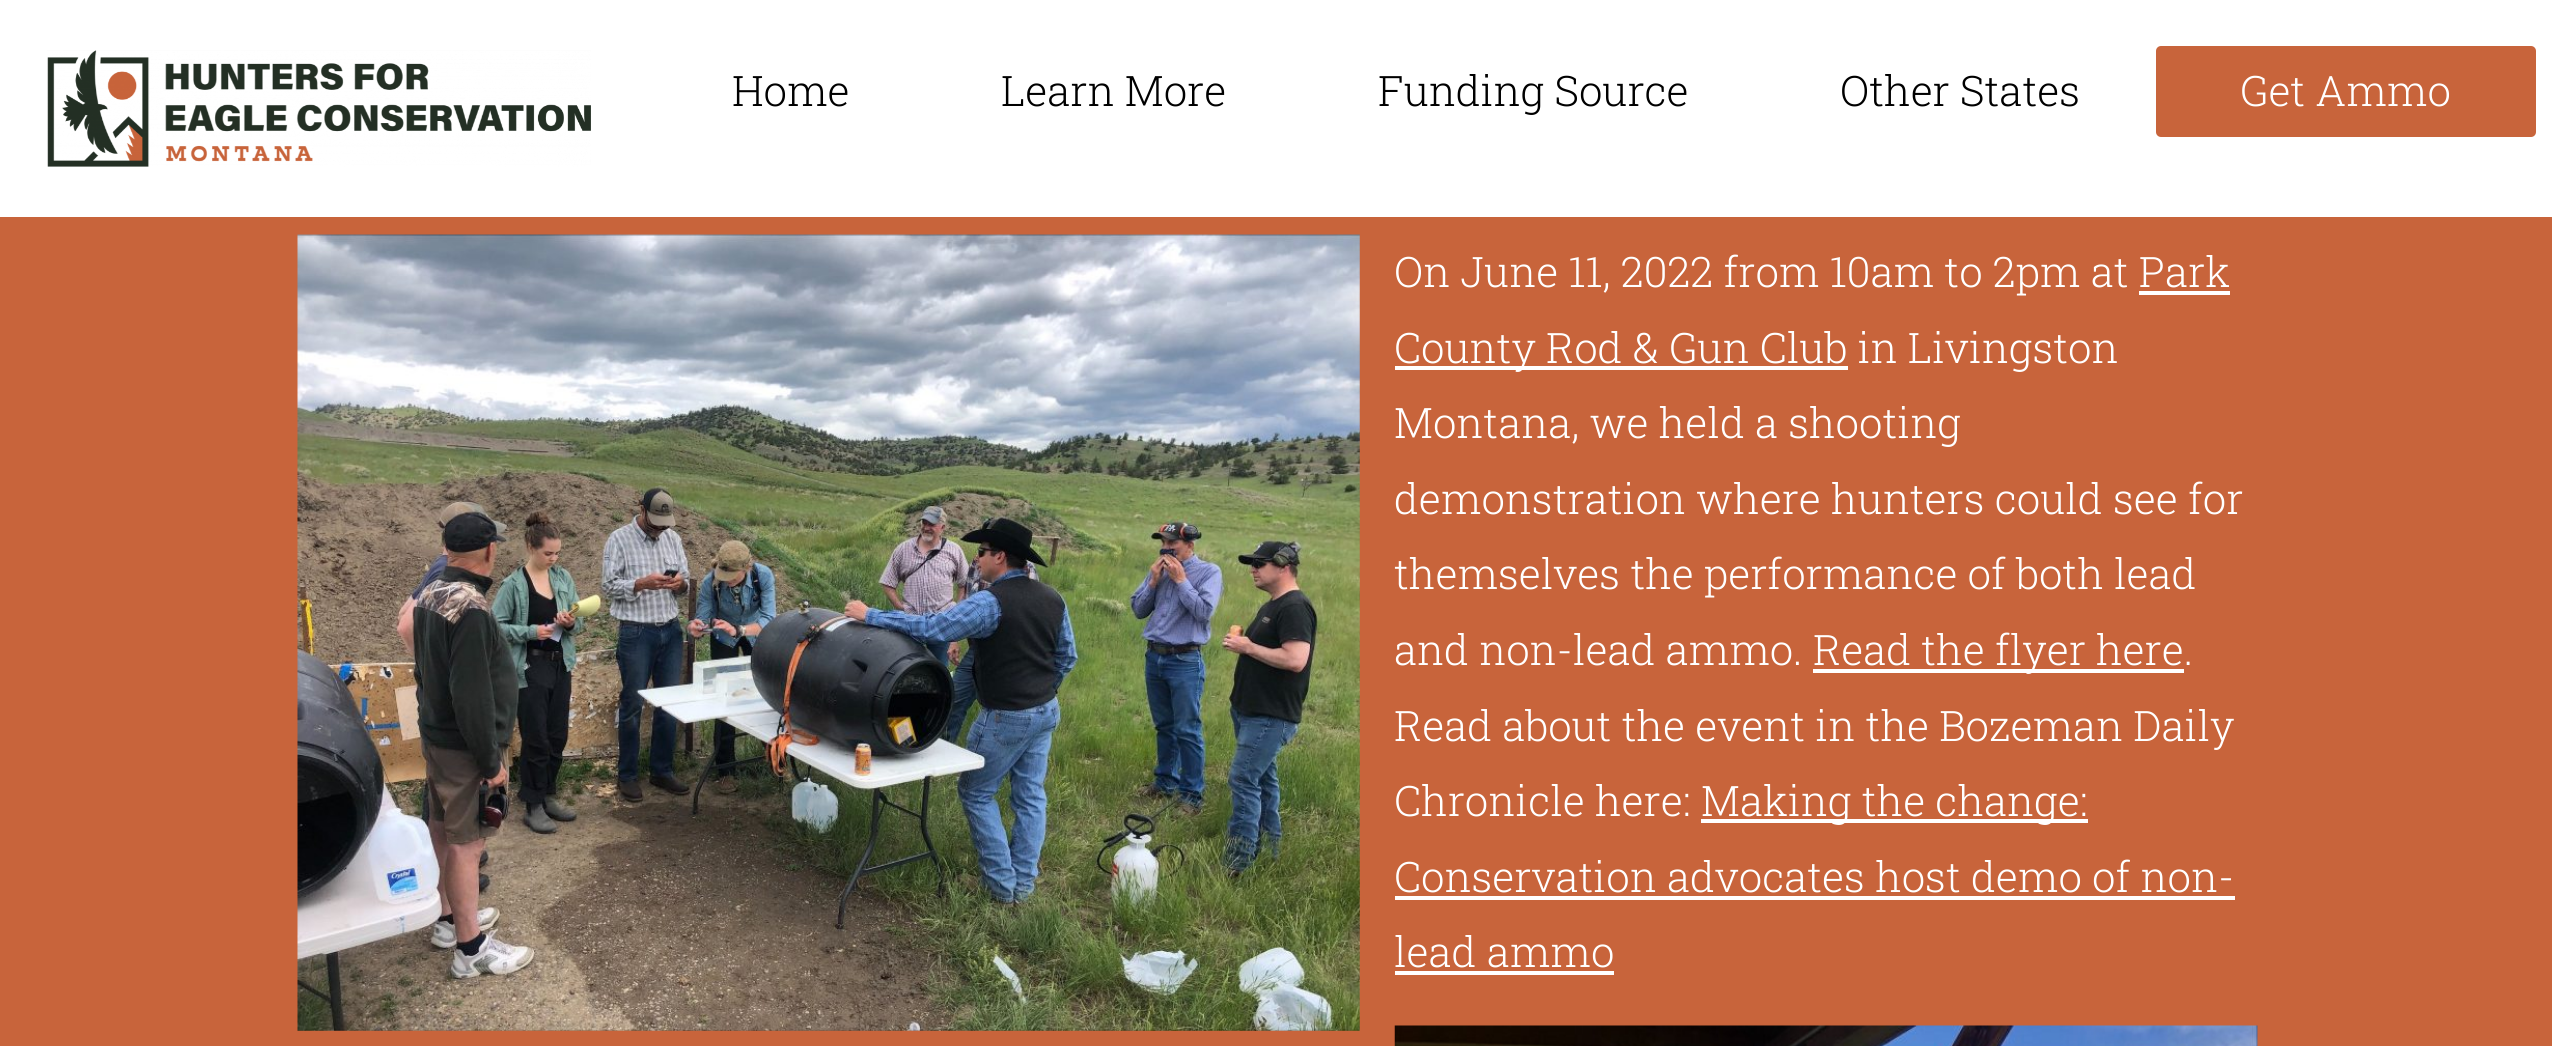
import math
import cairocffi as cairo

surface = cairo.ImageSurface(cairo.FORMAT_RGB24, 2552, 1046)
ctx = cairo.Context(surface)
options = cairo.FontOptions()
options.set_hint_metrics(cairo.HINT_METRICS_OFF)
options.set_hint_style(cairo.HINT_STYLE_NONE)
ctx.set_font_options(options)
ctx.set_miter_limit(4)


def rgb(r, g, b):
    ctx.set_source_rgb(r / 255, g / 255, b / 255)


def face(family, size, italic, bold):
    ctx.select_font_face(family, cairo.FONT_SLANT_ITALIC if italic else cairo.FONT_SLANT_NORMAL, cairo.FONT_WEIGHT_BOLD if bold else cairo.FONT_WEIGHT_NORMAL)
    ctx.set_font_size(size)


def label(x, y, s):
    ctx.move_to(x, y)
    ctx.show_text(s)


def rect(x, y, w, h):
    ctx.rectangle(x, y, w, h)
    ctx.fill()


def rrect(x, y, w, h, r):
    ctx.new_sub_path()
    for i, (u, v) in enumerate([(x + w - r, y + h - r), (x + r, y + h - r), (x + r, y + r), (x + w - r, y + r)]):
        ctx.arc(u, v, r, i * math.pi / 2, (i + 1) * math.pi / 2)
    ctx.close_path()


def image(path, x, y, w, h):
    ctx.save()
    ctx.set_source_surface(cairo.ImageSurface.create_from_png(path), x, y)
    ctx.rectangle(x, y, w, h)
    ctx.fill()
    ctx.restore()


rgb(255, 255, 255)
ctx.paint()
image('image0.png', 47, 50, 544, 117)
face('Roboto Slab Light', 42, 0, 0)
rgb(0, 0, 0)
label(732, 106, 'Home')
label(1001, 106, 'Learn More')
label(1378, 106, 'Funding Source')
label(1840, 106, 'Other States')
rgb(200, 100, 59)
rrect(2156, 46, 380, 91, 5)
ctx.fill()
rgb(255, 255, 255)
label(2240, 106, 'Get Ammo')
rgb(200, 100, 59)
rect(0, 217, 2552, 829)
image('image1.png', 297, 234, 1063, 797)
rgb(255, 255, 255)
label(1394, 287, 'On June 11, 2022 from 10am to 2pm at Park')
rect(1395, 366, 453, 4)
label(1394, 363, 'County Rod & Gun Club in Livingston')
rect(2139, 291, 91, 4)
label(1394, 438, 'Montana, we held a shooting')
label(1394, 514, 'demonstration where hunters could see for')
label(1394, 589, 'themselves the performance of both lead')
label(1394, 665, 'and non-lead ammo.')
rect(1813, 669, 371, 4)
label(1813, 665, 'Read the flyer here.')
label(1394, 741, 'Read about the event in the Bozeman Daily')
label(1394, 816, 'Chronicle here:')
rect(1701, 819, 387, 4)
label(1701, 816, 'Making the change:')
label(1394, 892, 'Conservation advocates host demo of non-')
rect(1395, 896, 840, 4)
label(1394, 967, 'lead ammo')
rect(1395, 971, 219, 4)
image('image2.png', 1394, 1025, 864, 21)
surface.write_to_png('render.png')
